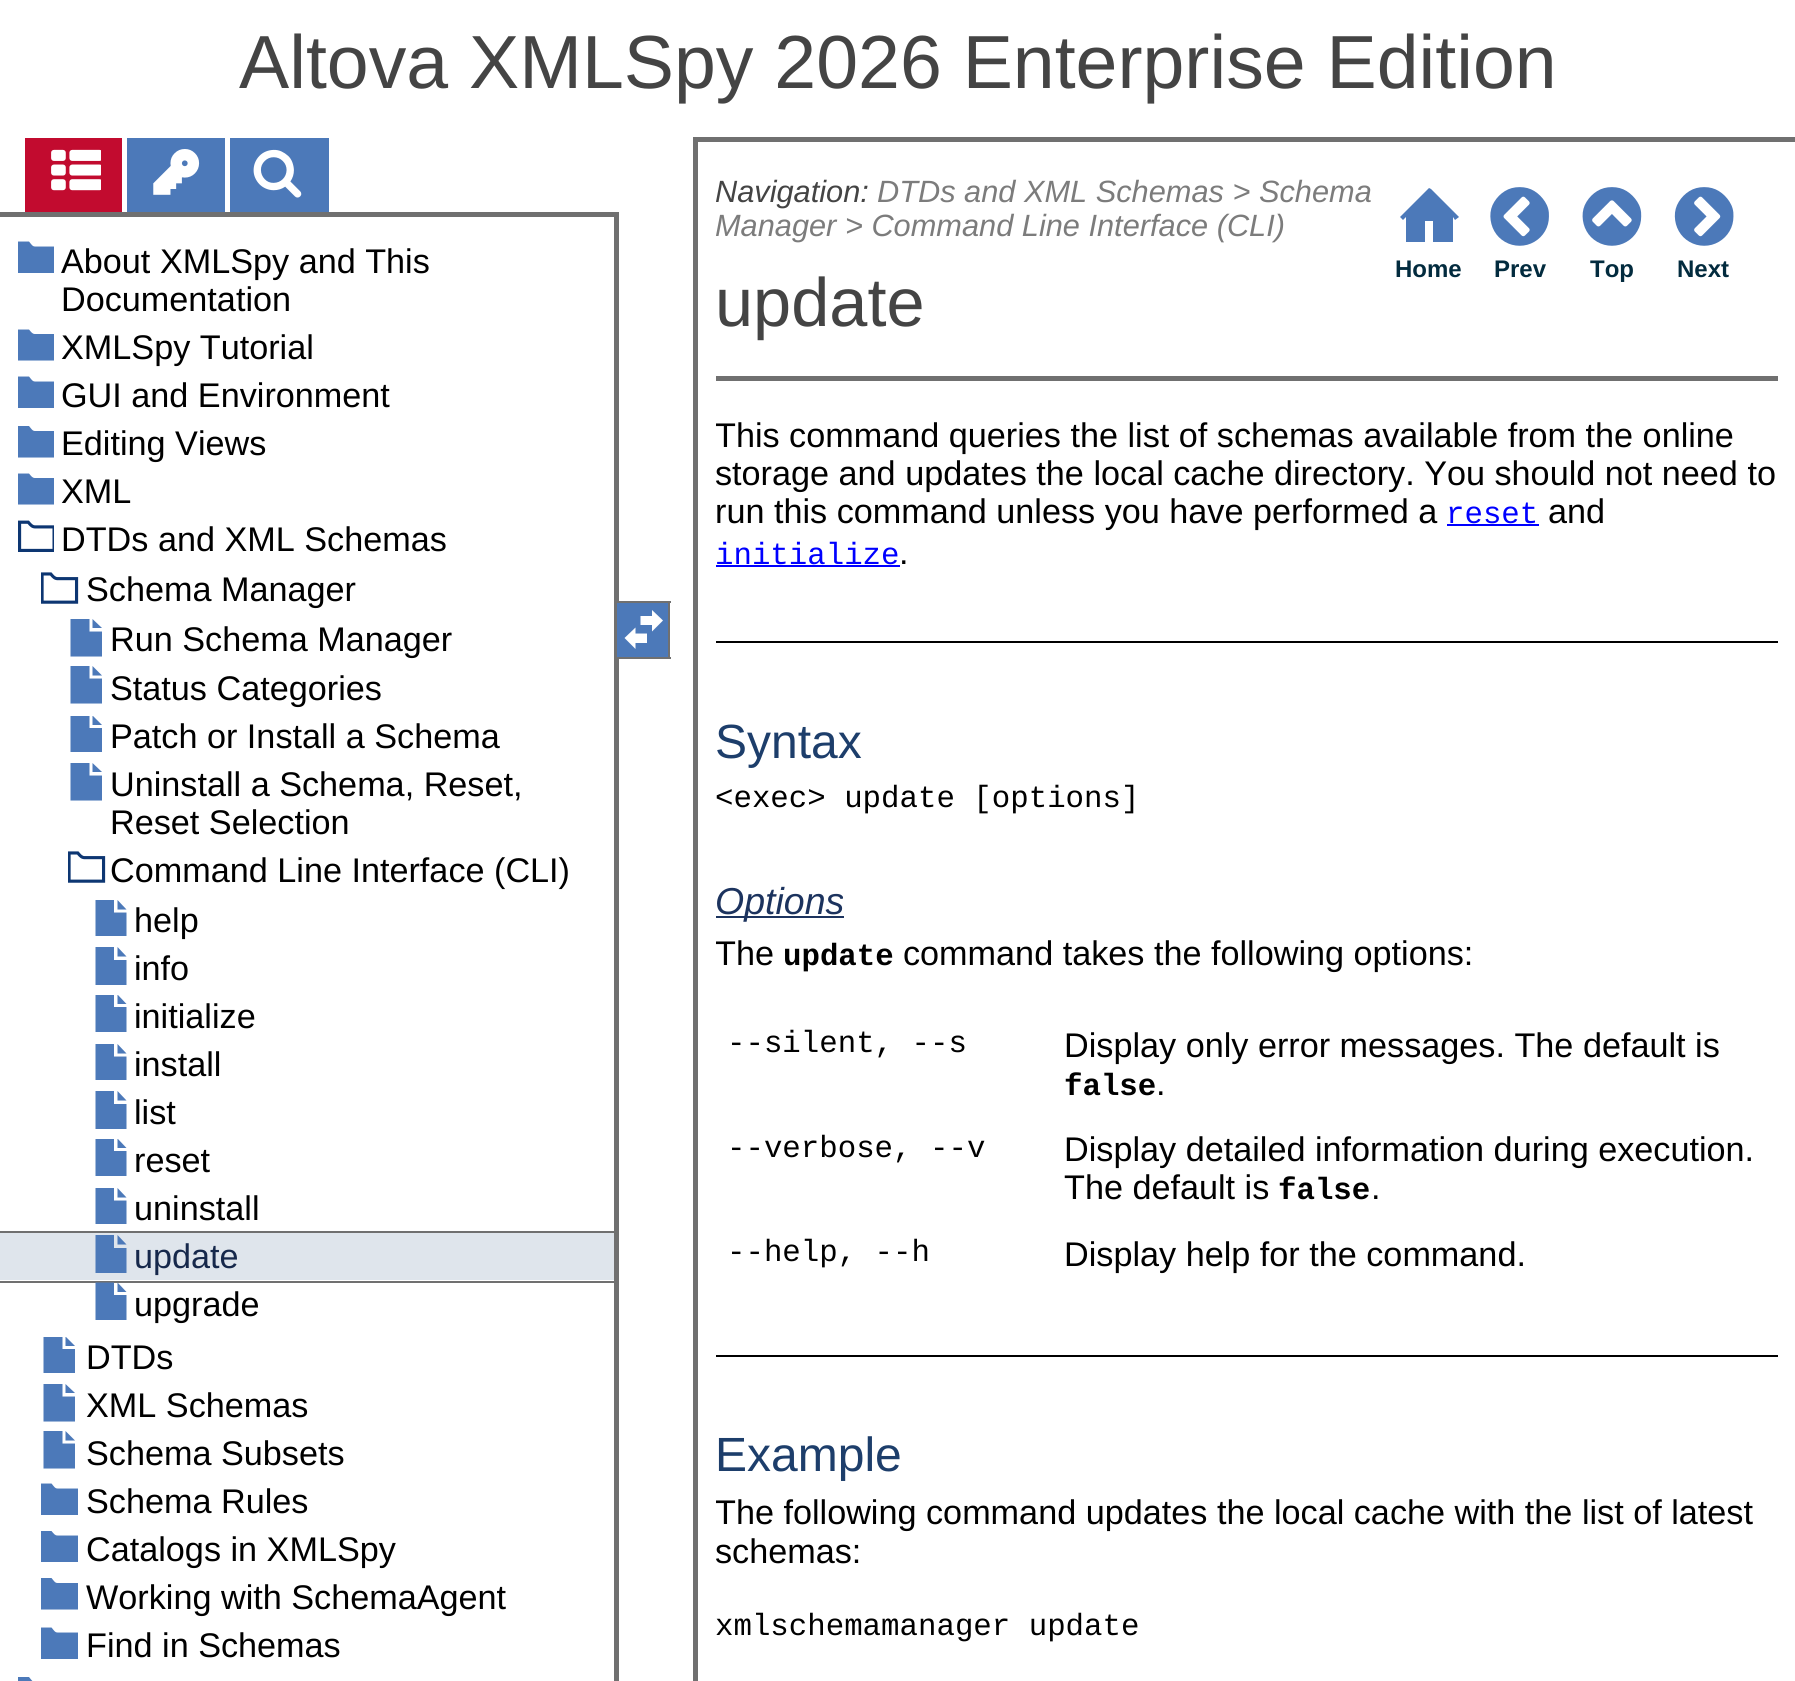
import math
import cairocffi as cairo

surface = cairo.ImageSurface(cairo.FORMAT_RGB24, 1795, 1681)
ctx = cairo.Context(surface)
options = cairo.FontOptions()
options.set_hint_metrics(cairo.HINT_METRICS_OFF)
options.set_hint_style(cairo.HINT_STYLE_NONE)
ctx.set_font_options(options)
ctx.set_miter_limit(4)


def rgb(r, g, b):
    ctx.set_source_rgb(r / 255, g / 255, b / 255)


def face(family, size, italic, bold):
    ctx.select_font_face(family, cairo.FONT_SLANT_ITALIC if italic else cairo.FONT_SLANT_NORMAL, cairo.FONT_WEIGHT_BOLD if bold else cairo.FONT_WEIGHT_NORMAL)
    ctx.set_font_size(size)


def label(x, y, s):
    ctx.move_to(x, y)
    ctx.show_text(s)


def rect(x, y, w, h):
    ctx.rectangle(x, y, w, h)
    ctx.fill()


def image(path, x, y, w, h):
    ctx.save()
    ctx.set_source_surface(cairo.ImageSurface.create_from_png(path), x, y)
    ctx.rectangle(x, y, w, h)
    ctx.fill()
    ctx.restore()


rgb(255, 255, 255)
ctx.paint()
face('Liberation Sans', 75.25, 0, 0)
rgb(68, 68, 68)
label(239, 88, 'Altova XMLSpy 2026 Enterprise Edition')
rgb(194, 11, 47)
rect(25, 138, 97, 74)
rgb(76, 121, 185)
rect(127, 138, 98, 74)
rect(230, 138, 99, 74)
image('image0.png', 51, 149, 50, 42)
image('image1.png', 153, 149, 47, 46)
image('image2.png', 253, 149, 49, 49)
rgb(112, 112, 112)
rect(0, 212, 619, 5)
rect(614, 212, 5, 1469)
ctx.save()
ctx.rectangle(18, 239, 36, 38)
ctx.clip()
rgb(76, 121, 185)
ctx.new_path()
ctx.move_to(35, 246.5)
ctx.curve_to(32.5, 246.5, 31.5, 244.5, 29, 241.5)
ctx.line_to(18, 241.5)
ctx.line_to(18, 273)
ctx.line_to(55.5, 273)
ctx.line_to(55.5, 246.5)
ctx.close_path()
ctx.fill()
ctx.restore()
face('Liberation Sans', 34.2, 0, 0)
rgb(0, 0, 0)
label(61, 273, 'About XMLSpy and This')
label(61, 311, 'Documentation')
ctx.save()
ctx.rectangle(18, 326, 36, 39)
ctx.clip()
rgb(76, 121, 185)
ctx.new_path()
ctx.move_to(35, 334)
ctx.curve_to(32.5, 334, 31.5, 332.5, 29, 329.5)
ctx.line_to(18, 329.5)
ctx.line_to(18, 360.5)
ctx.line_to(55.5, 360.5)
ctx.line_to(55.5, 334)
ctx.close_path()
ctx.fill()
ctx.restore()
label(61, 359, 'XMLSpy Tutorial')
ctx.save()
ctx.rectangle(18, 374, 36, 38)
ctx.clip()
rgb(76, 121, 185)
ctx.new_path()
ctx.move_to(35, 381.5)
ctx.curve_to(32.5, 381.5, 31.5, 379.5, 29, 376.5)
ctx.line_to(18, 376.5)
ctx.line_to(18, 408)
ctx.line_to(55.5, 408)
ctx.line_to(55.5, 381.5)
ctx.close_path()
ctx.fill()
ctx.restore()
label(61, 407, 'GUI and Environment')
ctx.save()
ctx.rectangle(18, 423, 36, 36)
ctx.clip()
rgb(76, 121, 185)
ctx.new_path()
ctx.move_to(35, 431)
ctx.curve_to(32.5, 431, 31.5, 429, 29, 426)
ctx.line_to(18, 426)
ctx.line_to(18, 457.5)
ctx.line_to(55.5, 457.5)
ctx.line_to(55.5, 431)
ctx.close_path()
ctx.fill()
ctx.restore()
label(61, 455, 'Editing Views')
ctx.save()
ctx.rectangle(18, 470, 36, 39)
ctx.clip()
rgb(76, 121, 185)
ctx.new_path()
ctx.move_to(35, 478)
ctx.curve_to(32.5, 478, 31.5, 476.5, 29, 473.5)
ctx.line_to(18, 473.5)
ctx.line_to(18, 504.5)
ctx.line_to(55.5, 504.5)
ctx.line_to(55.5, 478)
ctx.close_path()
ctx.fill()
ctx.restore()
label(61, 503, 'XML')
image('image3.png', 18, 520, 36, 32)
label(61, 551, 'DTDs and XML Schemas')
image('image4.png', 41, 572, 38, 32)
label(86, 601, 'Schema Manager')
rgb(76, 121, 185)
ctx.new_path()
ctx.move_to(102, 628)
ctx.line_to(92.5, 628)
ctx.line_to(92.5, 619)
ctx.close_path()
ctx.move_to(89.5, 631.5)
ctx.line_to(89.5, 619)
ctx.line_to(70.5, 619)
ctx.line_to(70.5, 656.5)
ctx.line_to(102, 656.5)
ctx.line_to(102, 631.5)
ctx.close_path()
ctx.fill()
rgb(0, 0, 0)
label(110, 651, 'Run Schema Manager')
rgb(76, 121, 185)
ctx.new_path()
ctx.move_to(102, 675.5)
ctx.line_to(92.5, 675.5)
ctx.line_to(92.5, 666)
ctx.close_path()
ctx.move_to(89.5, 678.5)
ctx.line_to(89.5, 666)
ctx.line_to(70.5, 666)
ctx.line_to(70.5, 703.5)
ctx.line_to(102, 703.5)
ctx.line_to(102, 678.5)
ctx.close_path()
ctx.fill()
rgb(0, 0, 0)
label(110, 700, 'Status Categories')
ctx.save()
ctx.rectangle(68, 716, 38, 36)
ctx.clip()
rgb(76, 121, 185)
ctx.new_path()
ctx.move_to(102, 725)
ctx.line_to(92.5, 725)
ctx.line_to(92.5, 715.5)
ctx.close_path()
ctx.move_to(89.5, 728)
ctx.line_to(89.5, 715.5)
ctx.line_to(70.5, 715.5)
ctx.line_to(70.5, 753)
ctx.line_to(102, 753)
ctx.line_to(102, 728)
ctx.close_path()
ctx.fill()
ctx.restore()
label(110, 748, 'Patch or Install a Schema')
rgb(76, 121, 185)
ctx.new_path()
ctx.move_to(102, 772)
ctx.line_to(92.5, 772)
ctx.line_to(92.5, 763)
ctx.close_path()
ctx.move_to(89.5, 775.5)
ctx.line_to(89.5, 763)
ctx.line_to(70.5, 763)
ctx.line_to(70.5, 800.5)
ctx.line_to(102, 800.5)
ctx.line_to(102, 775.5)
ctx.close_path()
ctx.fill()
rgb(0, 0, 0)
label(110, 796, 'Uninstall a Schema, Reset,')
label(110, 834, 'Reset Selection')
image('image4.png', 68, 851, 38, 32)
label(110, 882, 'Command Line Interface (CLI)')
ctx.save()
ctx.rectangle(92, 900, 39, 36)
ctx.clip()
rgb(76, 121, 185)
ctx.new_path()
ctx.move_to(126.5, 909.5)
ctx.line_to(117.5, 909.5)
ctx.line_to(117.5, 900)
ctx.close_path()
ctx.move_to(114, 912.5)
ctx.line_to(114, 900)
ctx.line_to(95.5, 900)
ctx.line_to(95.5, 937.5)
ctx.line_to(126.5, 937.5)
ctx.line_to(126.5, 912.5)
ctx.close_path()
ctx.fill()
ctx.restore()
label(134, 932, 'help')
rgb(76, 121, 185)
ctx.new_path()
ctx.move_to(126.5, 956.5)
ctx.line_to(117.5, 956.5)
ctx.line_to(117.5, 947)
ctx.close_path()
ctx.move_to(114, 960)
ctx.line_to(114, 947)
ctx.line_to(95.5, 947)
ctx.line_to(95.5, 985)
ctx.line_to(126.5, 985)
ctx.line_to(126.5, 960)
ctx.close_path()
ctx.fill()
rgb(0, 0, 0)
label(134, 980, 'info')
ctx.save()
ctx.rectangle(92, 995, 39, 38)
ctx.clip()
rgb(76, 121, 185)
ctx.new_path()
ctx.move_to(126.5, 1004)
ctx.line_to(117.5, 1004)
ctx.line_to(117.5, 994.5)
ctx.close_path()
ctx.move_to(114, 1007)
ctx.line_to(114, 994.5)
ctx.line_to(95.5, 994.5)
ctx.line_to(95.5, 1032)
ctx.line_to(126.5, 1032)
ctx.line_to(126.5, 1007)
ctx.close_path()
ctx.fill()
ctx.restore()
label(134, 1028, 'initialize')
ctx.save()
ctx.rectangle(92, 1044, 39, 36)
ctx.clip()
rgb(76, 121, 185)
ctx.new_path()
ctx.move_to(126.5, 1053.5)
ctx.line_to(117.5, 1053.5)
ctx.line_to(117.5, 1044)
ctx.close_path()
ctx.move_to(114, 1056.5)
ctx.line_to(114, 1044)
ctx.line_to(95.5, 1044)
ctx.line_to(95.5, 1081.5)
ctx.line_to(126.5, 1081.5)
ctx.line_to(126.5, 1056.5)
ctx.close_path()
ctx.fill()
ctx.restore()
label(134, 1076, 'install')
rgb(76, 121, 185)
ctx.new_path()
ctx.move_to(126.5, 1100.5)
ctx.line_to(117.5, 1100.5)
ctx.line_to(117.5, 1091)
ctx.close_path()
ctx.move_to(114, 1104)
ctx.line_to(114, 1091)
ctx.line_to(95.5, 1091)
ctx.line_to(95.5, 1129)
ctx.line_to(126.5, 1129)
ctx.line_to(126.5, 1104)
ctx.close_path()
ctx.fill()
rgb(0, 0, 0)
label(134, 1124, 'list')
ctx.save()
ctx.rectangle(92, 1139, 39, 38)
ctx.clip()
rgb(76, 121, 185)
ctx.new_path()
ctx.move_to(126.5, 1148)
ctx.line_to(117.5, 1148)
ctx.line_to(117.5, 1138.5)
ctx.close_path()
ctx.move_to(114, 1151)
ctx.line_to(114, 1138.5)
ctx.line_to(95.5, 1138.5)
ctx.line_to(95.5, 1176)
ctx.line_to(126.5, 1176)
ctx.line_to(126.5, 1151)
ctx.close_path()
ctx.fill()
ctx.restore()
label(134, 1172, 'reset')
ctx.save()
ctx.rectangle(92, 1188, 39, 36)
ctx.clip()
rgb(76, 121, 185)
ctx.new_path()
ctx.move_to(126.5, 1197.5)
ctx.line_to(117.5, 1197.5)
ctx.line_to(117.5, 1188)
ctx.close_path()
ctx.move_to(114, 1200.5)
ctx.line_to(114, 1188)
ctx.line_to(95.5, 1188)
ctx.line_to(95.5, 1225.5)
ctx.line_to(126.5, 1225.5)
ctx.line_to(126.5, 1200.5)
ctx.close_path()
ctx.fill()
ctx.restore()
label(134, 1220, 'uninstall')
rgb(223, 229, 236)
rect(0, 1233, 614, 47)
rgb(76, 121, 185)
ctx.new_path()
ctx.move_to(126.5, 1244.5)
ctx.line_to(117.5, 1244.5)
ctx.line_to(117.5, 1235)
ctx.close_path()
ctx.move_to(114, 1248)
ctx.line_to(114, 1235)
ctx.line_to(95.5, 1235)
ctx.line_to(95.5, 1273)
ctx.line_to(126.5, 1273)
ctx.line_to(126.5, 1248)
ctx.close_path()
ctx.fill()
ctx.save()
ctx.rectangle(0, 893, 614, 437)
ctx.clip()
ctx.rectangle(-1, 1232, 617, 50)
rgb(112, 112, 112)
ctx.stroke()
ctx.restore()
rgb(22, 40, 75)
label(134, 1268, 'update')
rgb(76, 121, 185)
ctx.new_path()
ctx.move_to(126.5, 1292)
ctx.line_to(117.5, 1292)
ctx.line_to(117.5, 1282.5)
ctx.close_path()
ctx.move_to(114, 1295)
ctx.line_to(114, 1282.5)
ctx.line_to(95.5, 1282.5)
ctx.line_to(95.5, 1320)
ctx.line_to(126.5, 1320)
ctx.line_to(126.5, 1295)
ctx.close_path()
ctx.fill()
rgb(0, 0, 0)
label(134, 1316, 'upgrade')
ctx.save()
ctx.rectangle(41, 1337, 38, 36)
ctx.clip()
rgb(76, 121, 185)
ctx.new_path()
ctx.move_to(75, 1346)
ctx.line_to(65.5, 1346)
ctx.line_to(65.5, 1336.5)
ctx.close_path()
ctx.move_to(62.5, 1349)
ctx.line_to(62.5, 1336.5)
ctx.line_to(43.5, 1336.5)
ctx.line_to(43.5, 1374)
ctx.line_to(75, 1374)
ctx.line_to(75, 1349)
ctx.close_path()
ctx.fill()
ctx.restore()
label(86, 1369, 'DTDs')
rgb(76, 121, 185)
ctx.new_path()
ctx.move_to(75, 1393)
ctx.line_to(65.5, 1393)
ctx.line_to(65.5, 1384)
ctx.close_path()
ctx.move_to(62.5, 1396.5)
ctx.line_to(62.5, 1384)
ctx.line_to(43.5, 1384)
ctx.line_to(43.5, 1421.5)
ctx.line_to(75, 1421.5)
ctx.line_to(75, 1396.5)
ctx.close_path()
ctx.fill()
rgb(0, 0, 0)
label(86, 1417, 'XML Schemas')
rgb(76, 121, 185)
ctx.new_path()
ctx.move_to(75, 1440.5)
ctx.line_to(65.5, 1440.5)
ctx.line_to(65.5, 1431)
ctx.close_path()
ctx.move_to(62.5, 1443.5)
ctx.line_to(62.5, 1431)
ctx.line_to(43.5, 1431)
ctx.line_to(43.5, 1468.5)
ctx.line_to(75, 1468.5)
ctx.line_to(75, 1443.5)
ctx.close_path()
ctx.fill()
rgb(0, 0, 0)
label(86, 1465, 'Schema Subsets')
ctx.save()
ctx.rectangle(41, 1481, 38, 36)
ctx.clip()
rgb(76, 121, 185)
ctx.new_path()
ctx.move_to(57.5, 1488.5)
ctx.curve_to(55, 1488.5, 54, 1486.5, 51.5, 1483.5)
ctx.line_to(40.5, 1483.5)
ctx.line_to(40.5, 1515)
ctx.line_to(78, 1515)
ctx.line_to(78, 1488.5)
ctx.close_path()
ctx.fill()
ctx.restore()
label(86, 1513, 'Schema Rules')
ctx.save()
ctx.rectangle(41, 1528, 38, 38)
ctx.clip()
rgb(76, 121, 185)
ctx.new_path()
ctx.move_to(57.5, 1535.5)
ctx.curve_to(55, 1535.5, 54, 1534, 51.5, 1531)
ctx.line_to(40.5, 1531)
ctx.line_to(40.5, 1562)
ctx.line_to(78, 1562)
ctx.line_to(78, 1535.5)
ctx.close_path()
ctx.fill()
ctx.restore()
label(86, 1561, 'Catalogs in XMLSpy')
ctx.save()
ctx.rectangle(41, 1575, 38, 38)
ctx.clip()
rgb(76, 121, 185)
ctx.new_path()
ctx.move_to(57.5, 1583)
ctx.curve_to(55, 1583, 54, 1581, 51.5, 1578)
ctx.line_to(40.5, 1578)
ctx.line_to(40.5, 1609.5)
ctx.line_to(78, 1609.5)
ctx.line_to(78, 1583)
ctx.close_path()
ctx.fill()
ctx.restore()
label(86, 1609, 'Working with SchemaAgent')
ctx.save()
ctx.rectangle(41, 1625, 38, 36)
ctx.clip()
rgb(76, 121, 185)
ctx.new_path()
ctx.move_to(57.5, 1632.5)
ctx.curve_to(55, 1632.5, 54, 1630.5, 51.5, 1627.5)
ctx.line_to(40.5, 1627.5)
ctx.line_to(40.5, 1659)
ctx.line_to(78, 1659)
ctx.line_to(78, 1632.5)
ctx.close_path()
ctx.fill()
ctx.restore()
label(86, 1657, 'Find in Schemas')
rgb(76, 121, 185)
ctx.new_path()
ctx.move_to(35, 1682)
ctx.curve_to(32.5, 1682, 31.5, 1680, 29, 1677)
ctx.line_to(18, 1677)
ctx.line_to(18, 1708.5)
ctx.line_to(55.5, 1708.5)
ctx.line_to(55.5, 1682)
ctx.close_path()
ctx.fill()
rect(617, 603, 51, 54)
rgb(112, 112, 112)
rect(617, 601, 54, 2)
rect(668, 601, 2, 58)
rect(617, 657, 54, 2)
rgb(255, 255, 255)
ctx.new_path()
ctx.move_to(652, 631.5)
ctx.line_to(652, 625)
ctx.line_to(640.5, 625)
ctx.line_to(640.5, 616)
ctx.line_to(652, 616)
ctx.line_to(652, 610)
ctx.line_to(663, 620.5)
ctx.close_path()
ctx.move_to(624.5, 638)
ctx.line_to(635.5, 649)
ctx.line_to(635.5, 643)
ctx.line_to(647, 643)
ctx.line_to(647, 633.5)
ctx.line_to(635.5, 633.5)
ctx.line_to(635.5, 627.5)
ctx.close_path()
ctx.fill()
rgb(112, 112, 112)
rect(693, 137, 1102, 5)
rect(693, 137, 5, 1544)
face('Liberation Sans', 30.75, 1, 0)
rgb(68, 68, 68)
label(715, 202, 'Navigation:')
rgb(124, 124, 124)
label(877, 202, 'DTDs and XML Schemas > Schema')
label(715, 236, 'Manager > Command Line Interface (CLI)')
rgb(76, 121, 185)
ctx.new_path()
ctx.move_to(1429, 188)
ctx.line_to(1400, 217)
ctx.line_to(1403, 220)
ctx.line_to(1406, 217)
ctx.line_to(1406, 242)
ctx.line_to(1425, 242)
ctx.line_to(1425, 221)
ctx.line_to(1433, 221)
ctx.line_to(1433, 242)
ctx.line_to(1453, 242)
ctx.line_to(1453, 217)
ctx.line_to(1455, 220)
ctx.line_to(1459, 217)
ctx.line_to(1431, 189)
ctx.close_path()
ctx.fill()
face('Liberation Sans', 24, 0, 1)
rgb(2, 43, 62)
label(1395, 277, 'Home')
image('image5.png', 1490, 187, 59, 59)
label(1494, 277, 'Prev')
image('image6.png', 1582, 187, 60, 59)
label(1590, 277, 'Top')
image('image7.png', 1674, 187, 60, 59)
label(1677, 277, 'Next')
face('Liberation Sans', 68.5, 0, 0)
rgb(68, 68, 68)
label(715, 326, 'update')
rgb(112, 112, 112)
rect(716, 376, 1062, 5)
ctx.save()
ctx.rectangle(716, 380, 1062, 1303)
ctx.clip()
face('Liberation Sans', 34.2, 0, 0)
rgb(0, 0, 0)
label(715, 447, 'This command queries the list of schemas available from the online')
ctx.restore()
face('Liberation Sans', 34.2, 0, 0)
rgb(0, 0, 0)
label(715, 485, 'storage and updates the local cache directory. You should not need to')
label(715, 523, 'run this command unless you have performed a')
face('Liberation Mono', 30.75, 0, 0)
rgb(0, 0, 255)
label(1446, 523, 'reset')
rect(1447, 524, 92, 2)
face('Liberation Sans', 34.2, 0, 0)
rgb(0, 0, 0)
label(1548, 523, 'and')
face('Liberation Mono', 30.75, 0, 0)
rgb(0, 0, 255)
label(715, 564, 'initialize')
rect(716, 565, 184, 2)
face('Liberation Sans', 34.2, 0, 0)
rgb(0, 0, 0)
label(899, 564, '.')
rect(716, 641, 1062, 2)
face('Liberation Sans', 48, 0, 0)
rgb(29, 62, 107)
label(715, 758, 'Syntax')
face('Liberation Mono', 30.75, 0, 0)
rgb(0, 0, 0)
label(715, 807, '<exec> update [options]')
rgb(28, 51, 94)
rect(716, 916, 128, 2)
face('Liberation Sans', 37.5, 1, 0)
label(715, 914, 'Options')
ctx.save()
ctx.rectangle(716, 380, 1062, 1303)
ctx.clip()
face('Liberation Sans', 34.2, 0, 0)
rgb(0, 0, 0)
label(715, 965, 'The')
ctx.restore()
face('Liberation Mono', 30.75, 0, 1)
rgb(0, 0, 0)
label(783, 965, 'update')
face('Liberation Sans', 34.2, 0, 0)
label(903, 965, 'command takes the following options:')
face('Liberation Mono', 30.75, 0, 0)
label(727, 1052, '--silent, --s')
face('Liberation Sans', 34.2, 0, 0)
label(1064, 1057, 'Display only error messages. The default is')
face('Liberation Mono', 30.75, 0, 1)
label(1064, 1095, 'false')
face('Liberation Sans', 34.2, 0, 0)
label(1156, 1095, '.')
face('Liberation Mono', 30.75, 0, 0)
label(727, 1157, '--verbose, --v')
face('Liberation Sans', 34.2, 0, 0)
label(1064, 1161, 'Display detailed information during execution.')
label(1064, 1199, 'The default is')
face('Liberation Mono', 30.75, 0, 1)
label(1278, 1199, 'false')
face('Liberation Sans', 34.2, 0, 0)
label(1371, 1199, '.')
face('Liberation Mono', 30.75, 0, 0)
label(727, 1261, '--help, --h')
face('Liberation Sans', 34.2, 0, 0)
label(1064, 1266, 'Display help for the command.')
rect(716, 1355, 1062, 2)
face('Liberation Sans', 48, 0, 0)
rgb(29, 62, 107)
label(715, 1471, 'Example')
ctx.save()
ctx.rectangle(716, 380, 1062, 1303)
ctx.clip()
face('Liberation Sans', 34.2, 0, 0)
rgb(0, 0, 0)
label(715, 1524, 'The following command updates the local cache with the list of latest')
ctx.restore()
face('Liberation Sans', 34.2, 0, 0)
rgb(0, 0, 0)
label(715, 1563, 'schemas:')
face('Liberation Mono', 30.75, 0, 0)
label(715, 1635, 'xmlschemamanager update')
surface.write_to_png('render.png')
